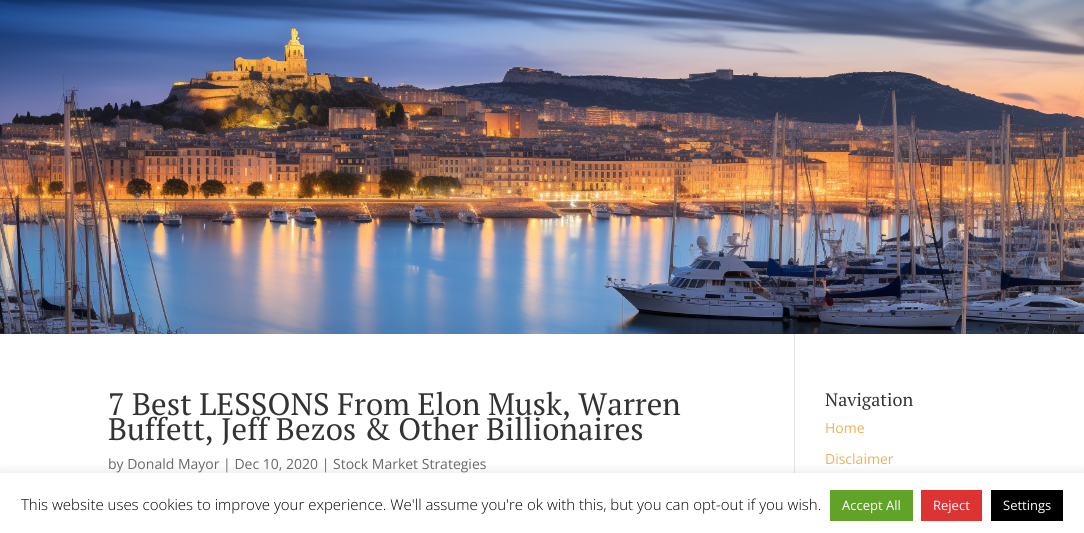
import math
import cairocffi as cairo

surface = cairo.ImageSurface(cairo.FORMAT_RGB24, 1084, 533)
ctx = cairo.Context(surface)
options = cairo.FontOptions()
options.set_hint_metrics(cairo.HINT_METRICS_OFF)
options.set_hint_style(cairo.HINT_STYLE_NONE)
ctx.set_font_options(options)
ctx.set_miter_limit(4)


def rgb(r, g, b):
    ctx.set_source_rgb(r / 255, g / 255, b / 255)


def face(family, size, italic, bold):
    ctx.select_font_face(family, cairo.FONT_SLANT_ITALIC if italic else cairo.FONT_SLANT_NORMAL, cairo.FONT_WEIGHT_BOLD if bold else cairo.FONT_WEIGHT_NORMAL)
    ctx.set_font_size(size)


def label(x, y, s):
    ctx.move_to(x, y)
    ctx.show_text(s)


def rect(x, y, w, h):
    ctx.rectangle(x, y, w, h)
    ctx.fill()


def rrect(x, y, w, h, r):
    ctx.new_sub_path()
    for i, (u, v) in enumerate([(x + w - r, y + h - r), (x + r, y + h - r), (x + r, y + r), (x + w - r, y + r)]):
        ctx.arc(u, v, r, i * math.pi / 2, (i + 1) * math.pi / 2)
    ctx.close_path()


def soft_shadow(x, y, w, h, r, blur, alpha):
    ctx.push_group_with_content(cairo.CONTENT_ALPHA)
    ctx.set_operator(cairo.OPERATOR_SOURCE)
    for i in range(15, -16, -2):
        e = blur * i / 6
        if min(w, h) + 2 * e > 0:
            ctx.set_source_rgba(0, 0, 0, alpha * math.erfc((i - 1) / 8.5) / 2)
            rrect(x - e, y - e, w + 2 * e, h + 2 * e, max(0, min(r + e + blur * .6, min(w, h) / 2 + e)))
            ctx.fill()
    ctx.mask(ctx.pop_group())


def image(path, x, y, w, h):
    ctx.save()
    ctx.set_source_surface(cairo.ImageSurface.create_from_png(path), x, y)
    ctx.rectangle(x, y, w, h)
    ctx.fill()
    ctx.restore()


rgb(255, 255, 255)
ctx.paint()
image('image0.png', 0, 0, 1084, 334)
rgb(226, 226, 226)
rect(794, 334, 1, 139)
face('PT Serif', 31, 0, 0)
rgb(51, 51, 51)
label(108, 415, '7 Best LESSONS From Elon Musk, Warren')
label(108, 440, 'Buffett, Jeff Bezos & Other Billionaires')
face('Open Sans', 14, 0, 0)
rgb(102, 102, 102)
label(108, 469, 'by Donald Mayor | Dec 10, 2020 | Stock Market Strategies')
face('PT Serif', 18, 0, 0)
rgb(51, 51, 51)
label(825, 406, 'Navigation')
face('Open Sans', 14, 0, 0)
rgb(237, 176, 89)
label(825, 433, 'Home')
label(825, 464, 'Disclaimer')
rgb(172, 171, 171)
soft_shadow(0, 472, 1084, 60, 0, 5, 0.3)
rgb(255, 255, 255)
rect(0, 473, 1084, 60)
face('Open Sans Light', 15, 0, 0)
rgb(0, 0, 0)
label(21, 510, 'This website uses cookies to improve your experience. We\'ll assume you\'re ok with this, but you can opt-out if you wish.')
rgb(97, 162, 41)
rect(830, 490, 83, 31)
face('Open Sans', 13, 0, 0)
rgb(255, 255, 255)
label(842, 510, 'Accept All')
rgb(221, 51, 51)
rect(921, 490, 61, 31)
rgb(255, 255, 255)
label(933, 510, 'Reject')
rgb(0, 0, 0)
rect(991, 490, 72, 31)
rgb(255, 255, 255)
label(1003, 510, 'Settings')
surface.write_to_png('render.png')
